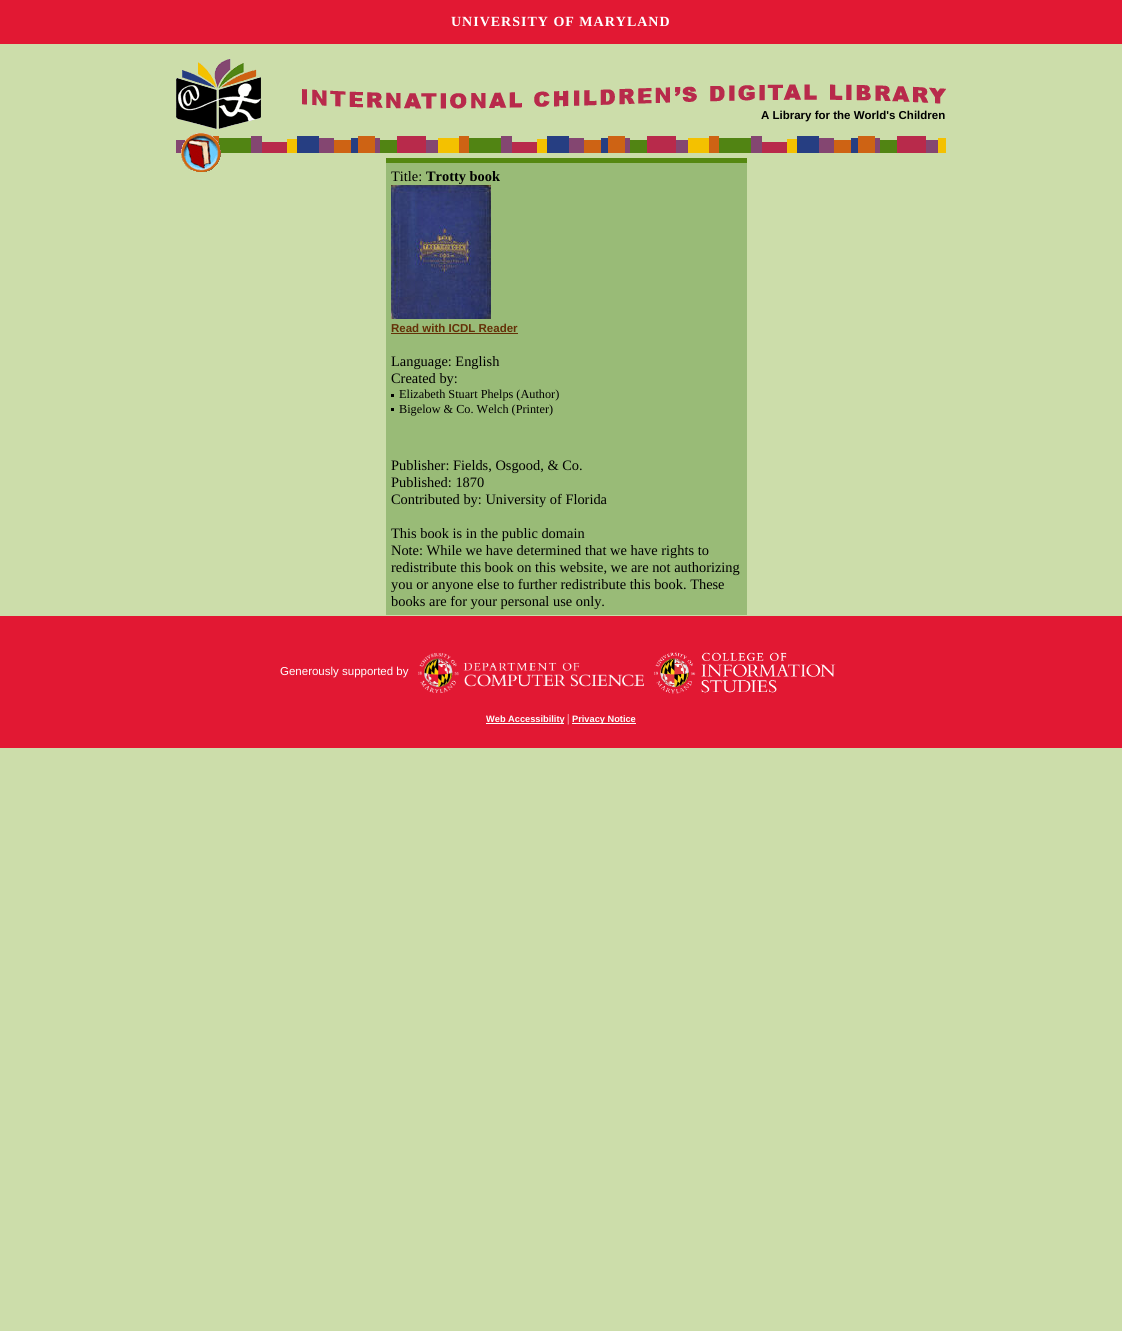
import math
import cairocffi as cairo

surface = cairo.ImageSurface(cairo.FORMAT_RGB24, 1122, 1331)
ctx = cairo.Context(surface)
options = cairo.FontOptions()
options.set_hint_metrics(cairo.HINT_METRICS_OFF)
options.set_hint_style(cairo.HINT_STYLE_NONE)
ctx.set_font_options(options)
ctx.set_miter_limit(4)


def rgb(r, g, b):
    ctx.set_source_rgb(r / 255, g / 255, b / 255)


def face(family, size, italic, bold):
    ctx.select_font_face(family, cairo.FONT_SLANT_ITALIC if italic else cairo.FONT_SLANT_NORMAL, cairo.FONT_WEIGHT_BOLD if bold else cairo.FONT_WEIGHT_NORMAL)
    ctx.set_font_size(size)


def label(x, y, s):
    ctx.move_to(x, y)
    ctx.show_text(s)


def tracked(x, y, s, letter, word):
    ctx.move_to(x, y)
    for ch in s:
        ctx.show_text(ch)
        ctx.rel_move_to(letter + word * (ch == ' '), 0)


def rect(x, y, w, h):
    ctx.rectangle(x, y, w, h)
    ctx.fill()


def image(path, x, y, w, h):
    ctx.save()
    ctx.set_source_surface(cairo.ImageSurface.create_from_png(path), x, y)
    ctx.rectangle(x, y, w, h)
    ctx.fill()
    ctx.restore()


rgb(204, 221, 170)
ctx.paint()
rgb(226, 24, 51)
rect(0, 0, 1122, 44)
face('Liberation Serif', 14, 0, 1)
rgb(255, 255, 255)
tracked(451, 26, 'UNIVERSITY OF MARYLAND', 1, 0)
image('image0.png', 176, 59, 85, 70)
image('image1.png', 302, 84, 644, 25)
face('Liberation Sans', 11.5, 0, 1)
rgb(0, 0, 0)
label(761, 119, 'A Library for the World\'s Children')
image('image3.png', 176, 136, 770, 17)
image('image2.png', 181, 133, 40, 39)
rgb(153, 187, 119)
rect(386, 163, 361, 452)
rgb(85, 136, 17)
rect(386, 158, 361, 5)
face('Liberation Serif', 14.4, 0, 0)
rgb(0, 0, 0)
label(391, 181, 'Title:')
face('Liberation Serif', 14.4, 0, 1)
label(426, 181, 'Trotty book')
image('image4.png', 391, 185, 100, 134)
face('Liberation Sans', 11.5, 0, 1)
rgb(100, 49, 7)
label(391, 332, 'Read with ICDL Reader')
rect(391, 333, 127, 1)
face('Liberation Serif', 14.4, 0, 0)
rgb(0, 0, 0)
label(391, 366, 'Language: English')
label(391, 383, 'Created by:')
rect(391, 394, 3, 3)
face('Liberation Serif', 12.25, 0, 0)
label(399, 398, 'Elizabeth Stuart Phelps (Author)')
rect(391, 408, 3, 3)
label(399, 413, 'Bigelow & Co. Welch (Printer)')
face('Liberation Serif', 14.4, 0, 0)
label(391, 470, 'Publisher: Fields, Osgood, & Co.')
label(391, 487, 'Published: 1870')
label(391, 504, 'Contributed by: University of Florida')
label(391, 538, 'This book is in the public domain')
label(391, 555, 'Note: While we have determined that we have rights to')
label(391, 572, 'redistribute this book on this website, we are not authorizing')
label(391, 589, 'you or anyone else to further redistribute this book. These')
label(391, 606, 'books are for your personal use only.')
rgb(226, 24, 51)
rect(0, 616, 1122, 132)
face('Liberation Sans', 11.5, 0, 0)
rgb(255, 255, 255)
label(280, 675, 'Generously supported by')
image('image5.png', 418, 653, 226, 40)
image('image6.png', 654, 652, 182, 42)
rect(486, 723, 78, 1)
face('Liberation Sans', 9.25, 0, 1)
label(486, 722, 'Web Accessibility')
face('Liberation Serif', 11.5, 0, 0)
label(567, 722, '|')
rect(572, 723, 64, 1)
face('Liberation Sans', 9.25, 0, 1)
label(572, 722, 'Privacy Notice')
surface.write_to_png('render.png')
